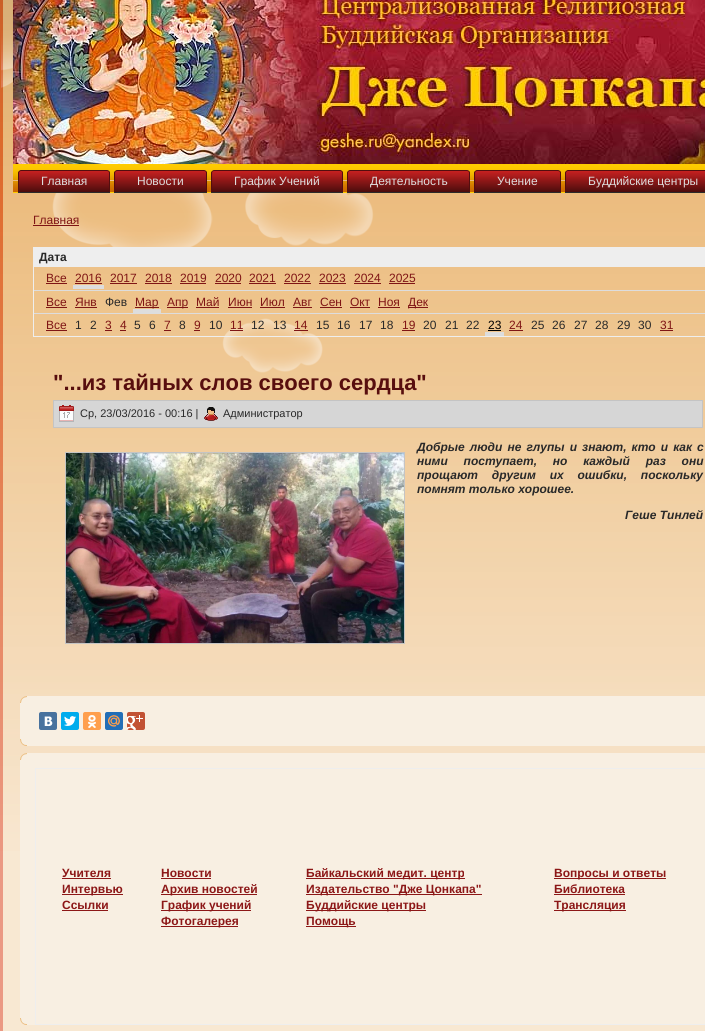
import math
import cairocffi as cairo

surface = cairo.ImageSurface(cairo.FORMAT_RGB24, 705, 1031)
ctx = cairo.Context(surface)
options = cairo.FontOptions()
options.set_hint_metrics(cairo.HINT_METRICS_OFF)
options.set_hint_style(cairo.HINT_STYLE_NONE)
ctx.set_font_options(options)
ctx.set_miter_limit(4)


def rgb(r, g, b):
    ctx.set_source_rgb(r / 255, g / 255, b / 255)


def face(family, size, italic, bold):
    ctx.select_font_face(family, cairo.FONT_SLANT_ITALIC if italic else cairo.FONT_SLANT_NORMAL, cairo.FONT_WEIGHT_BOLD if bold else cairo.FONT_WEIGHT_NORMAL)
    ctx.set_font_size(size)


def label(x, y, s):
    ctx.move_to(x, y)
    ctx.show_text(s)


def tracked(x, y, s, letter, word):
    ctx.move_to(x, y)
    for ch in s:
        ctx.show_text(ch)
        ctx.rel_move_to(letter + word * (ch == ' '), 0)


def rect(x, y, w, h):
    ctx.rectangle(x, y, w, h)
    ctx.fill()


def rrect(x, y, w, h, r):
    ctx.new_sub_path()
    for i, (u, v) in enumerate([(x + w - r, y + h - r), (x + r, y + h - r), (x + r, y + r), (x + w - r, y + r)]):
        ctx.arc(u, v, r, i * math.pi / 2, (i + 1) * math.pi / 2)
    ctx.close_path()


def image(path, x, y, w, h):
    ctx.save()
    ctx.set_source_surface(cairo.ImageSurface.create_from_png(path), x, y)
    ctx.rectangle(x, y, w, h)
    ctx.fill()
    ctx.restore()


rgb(244, 216, 180)
ctx.paint()
rgb(248, 232, 210)
rect(17, 851, 688, 180)
image('image0.png', 0, 0, 705, 851)
image('image1.png', 1, 30, 373, 343)
image('image2.png', 0, 0, 17, 1031)
image('image3.png', 13, 0, 692, 164)
image('image4.png', 13, 164, 692, 29)
image('image5.png', 18, 170, 89, 23)
image('image6.png', 107, 170, 3, 23)
face('Liberation Sans', 12, 0, 0)
rgb(222, 222, 222)
label(41, 185, 'Главная')
image('image7.png', 114, 170, 90, 23)
image('image6.png', 204, 170, 3, 23)
label(137, 185, 'Новости')
image('image8.png', 211, 170, 129, 23)
image('image6.png', 340, 170, 3, 23)
label(234, 185, 'График Учений')
image('image9.png', 347, 170, 120, 23)
image('image6.png', 467, 170, 3, 23)
label(370, 185, 'Деятельность')
image('image10.png', 474, 170, 84, 23)
image('image6.png', 558, 170, 3, 23)
label(497, 185, 'Учение')
image('image11.png', 565, 170, 140, 23)
label(588, 185, 'Буддийские центры')
rgb(127, 21, 21)
label(33, 224, 'Главная')
rect(33, 225, 46, 1)
rgb(238, 238, 238)
rect(33, 247, 672, 19)
face('Liberation Sans', 12, 0, 1)
rgb(41, 41, 41)
label(39, 261, 'Дата')
ctx.rectangle(33.5, 266.5, 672, 70)
rgb(238, 238, 238)
ctx.set_line_width(1)
ctx.stroke()
rgb(221, 221, 221)
rect(34, 290, 671, 1)
face('Liberation Sans', 12, 0, 0)
rgb(127, 21, 21)
label(46, 282, 'Все')
rect(46, 283, 21, 1)
label(75, 282, '2016')
rgb(221, 221, 221)
rect(73, 285, 31, 4)
rgb(127, 21, 21)
rect(75, 283, 27, 1)
label(110, 282, '2017')
rect(110, 283, 27, 1)
label(145, 282, '2018')
rect(145, 283, 27, 1)
label(180, 282, '2019')
rect(180, 283, 26, 1)
label(215, 282, '2020')
rect(215, 283, 26, 1)
label(249, 282, '2021')
rect(249, 283, 27, 1)
label(284, 282, '2022')
rect(284, 283, 27, 1)
label(319, 282, '2023')
rect(319, 283, 27, 1)
label(354, 282, '2024')
rect(354, 283, 27, 1)
label(389, 282, '2025')
rect(389, 283, 26, 1)
rgb(221, 221, 221)
rect(34, 313, 671, 1)
rgb(127, 21, 21)
label(46, 306, 'Все')
rect(46, 307, 21, 1)
label(75, 306, 'Янв')
rect(75, 307, 22, 1)
rgb(41, 41, 41)
label(105, 306, 'Фев')
rgb(127, 21, 21)
rect(135, 307, 24, 1)
label(135, 306, 'Мар')
rgb(221, 221, 221)
rect(133, 309, 28, 4)
rgb(127, 21, 21)
rect(167, 307, 21, 1)
label(167, 306, 'Апр')
label(196, 306, 'Май')
rect(196, 307, 23, 1)
label(228, 306, 'Июн')
rect(228, 307, 24, 1)
label(260, 306, 'Июл')
rect(260, 307, 25, 1)
label(293, 306, 'Авг')
rect(293, 307, 19, 1)
label(320, 306, 'Сен')
rect(320, 307, 22, 1)
label(350, 306, 'Окт')
rect(350, 307, 20, 1)
label(378, 306, 'Ноя')
rect(378, 307, 22, 1)
rect(408, 307, 20, 1)
label(408, 306, 'Дек')
label(46, 329, 'Все')
rect(46, 330, 21, 1)
rgb(41, 41, 41)
label(75, 329, '1')
label(90, 329, '2')
rgb(127, 21, 21)
label(105, 329, '3')
rect(105, 330, 7, 1)
label(120, 329, '4')
rect(120, 330, 6, 1)
rgb(41, 41, 41)
label(134, 329, '5')
label(149, 329, '6')
rgb(127, 21, 21)
label(164, 329, '7')
rect(164, 330, 7, 1)
rgb(41, 41, 41)
label(179, 329, '8')
rgb(127, 21, 21)
label(194, 329, '9')
rect(194, 330, 6, 1)
rgb(41, 41, 41)
label(209, 329, '10')
rgb(127, 21, 21)
label(230, 329, '11')
rect(230, 330, 13, 1)
rgb(41, 41, 41)
label(251, 329, '12')
label(273, 329, '13')
rgb(127, 21, 21)
label(294, 329, '14')
rect(294, 330, 14, 1)
rgb(41, 41, 41)
label(316, 329, '15')
label(337, 329, '16')
label(359, 329, '17')
label(380, 329, '18')
rgb(127, 21, 21)
label(402, 329, '19')
rect(402, 330, 13, 1)
rgb(41, 41, 41)
label(423, 329, '20')
label(445, 329, '21')
label(466, 329, '22')
rgb(0, 0, 0)
label(488, 329, '23')
rgb(221, 221, 221)
rect(485, 332, 19, 4)
rgb(0, 0, 0)
rect(488, 330, 13, 1)
rgb(127, 21, 21)
label(509, 329, '24')
rect(509, 330, 14, 1)
rgb(41, 41, 41)
label(531, 329, '25')
label(552, 329, '26')
label(574, 329, '27')
label(595, 329, '28')
label(617, 329, '29')
label(638, 329, '30')
rgb(127, 21, 21)
label(660, 329, '31')
rect(660, 330, 13, 1)
face('Liberation Sans', 22, 0, 1)
rgb(88, 14, 14)
label(53, 390, '"...из тайных слов своего сердца"')
rgb(214, 214, 214)
ctx.rectangle(53.5, 400.5, 649, 27)
ctx.fill_preserve()
rgb(196, 196, 196)
ctx.stroke()
image('image12.png', 59, 405, 15, 17)
face('Liberation Sans', 11, 0, 0)
rgb(41, 41, 41)
label(80, 417, 'Ср, 23/03/2016 - 00:16 |')
image('image13.png', 204, 407, 14, 14)
label(223, 417, 'Администратор')
face('Liberation Sans', 12, 1, 1)
tracked(417, 451, 'Добрые люди не глупы и знают, кто и как с', 0, 1.75)
ctx.rectangle(65.5, 452.5, 339, 191)
rgb(196, 196, 196)
ctx.stroke()
image('image14.png', 66, 453, 338, 190)
rgb(41, 41, 41)
tracked(417, 465, 'ними поступает, но каждый раз они', 0, 12.5)
tracked(417, 479, 'прощают другим их ошибки, поскольку', 0, 10.5)
label(417, 493, 'помнят только хорошее.')
label(625, 519, 'Геше Тинлей')
image('image15.png', 20, 696, 7, 7)
rgb(248, 239, 226)
rect(27, 696, 678, 7)
rect(20, 703, 685, 36)
rgb(72, 114, 158)
rrect(39, 712, 18, 18, 2)
ctx.fill()
image('image16.png', 44, 716, 9, 10)
rgb(0, 172, 237)
rrect(61, 712, 18, 18, 2)
ctx.fill()
image('image17.png', 64, 716, 12, 10)
rgb(255, 159, 77)
rrect(83, 712, 18, 18, 2)
ctx.fill()
image('image18.png', 88, 715, 8, 13)
rgb(34, 110, 183)
rrect(105, 712, 18, 18, 2)
ctx.fill()
image('image19.png', 108, 715, 12, 12)
rgb(194, 82, 52)
rrect(127, 712, 18, 18, 2)
ctx.fill()
image('image20.png', 127, 715, 16, 15)
image('image21.png', 20, 739, 7, 7)
rgb(248, 239, 226)
rect(27, 739, 678, 7)
image('image22.png', 20, 753, 7, 7)
rect(27, 753, 678, 7)
rect(20, 760, 685, 258)
rgb(238, 238, 238)
rect(35, 768, 670, 1)
rgb(248, 239, 226)
rect(27, 1018, 678, 7)
rgb(238, 238, 238)
rect(35, 1024, 670, 1)
rect(35, 768, 1, 257)
face('Liberation Sans', 12, 0, 1)
rgb(140, 23, 23)
label(62, 877, 'Учителя')
rect(62, 878, 49, 1)
label(161, 877, 'Новости')
rect(161, 878, 50, 1)
rect(306, 878, 159, 1)
label(306, 877, 'Байкальский медит. центр')
rect(554, 878, 112, 1)
label(554, 877, 'Вопросы и ответы')
rect(62, 894, 61, 1)
label(62, 893, 'Интервью')
rect(161, 894, 96, 1)
label(161, 893, 'Архив новостей')
rect(306, 894, 176, 1)
label(306, 893, 'Издательство "Дже Цонкапа"')
label(554, 893, 'Библиотека')
rect(554, 894, 71, 1)
label(62, 909, 'Ссылки')
rect(62, 910, 46, 1)
rect(161, 910, 90, 1)
label(161, 909, 'График учений')
rect(306, 910, 120, 1)
label(306, 909, 'Буддийские центры')
rect(554, 910, 72, 1)
label(554, 909, 'Трансляция')
rect(161, 926, 77, 1)
label(161, 925, 'Фотогалерея')
rect(306, 926, 50, 1)
label(306, 925, 'Помощь')
image('image23.png', 20, 1018, 7, 7)
surface.write_to_png('render.png')
